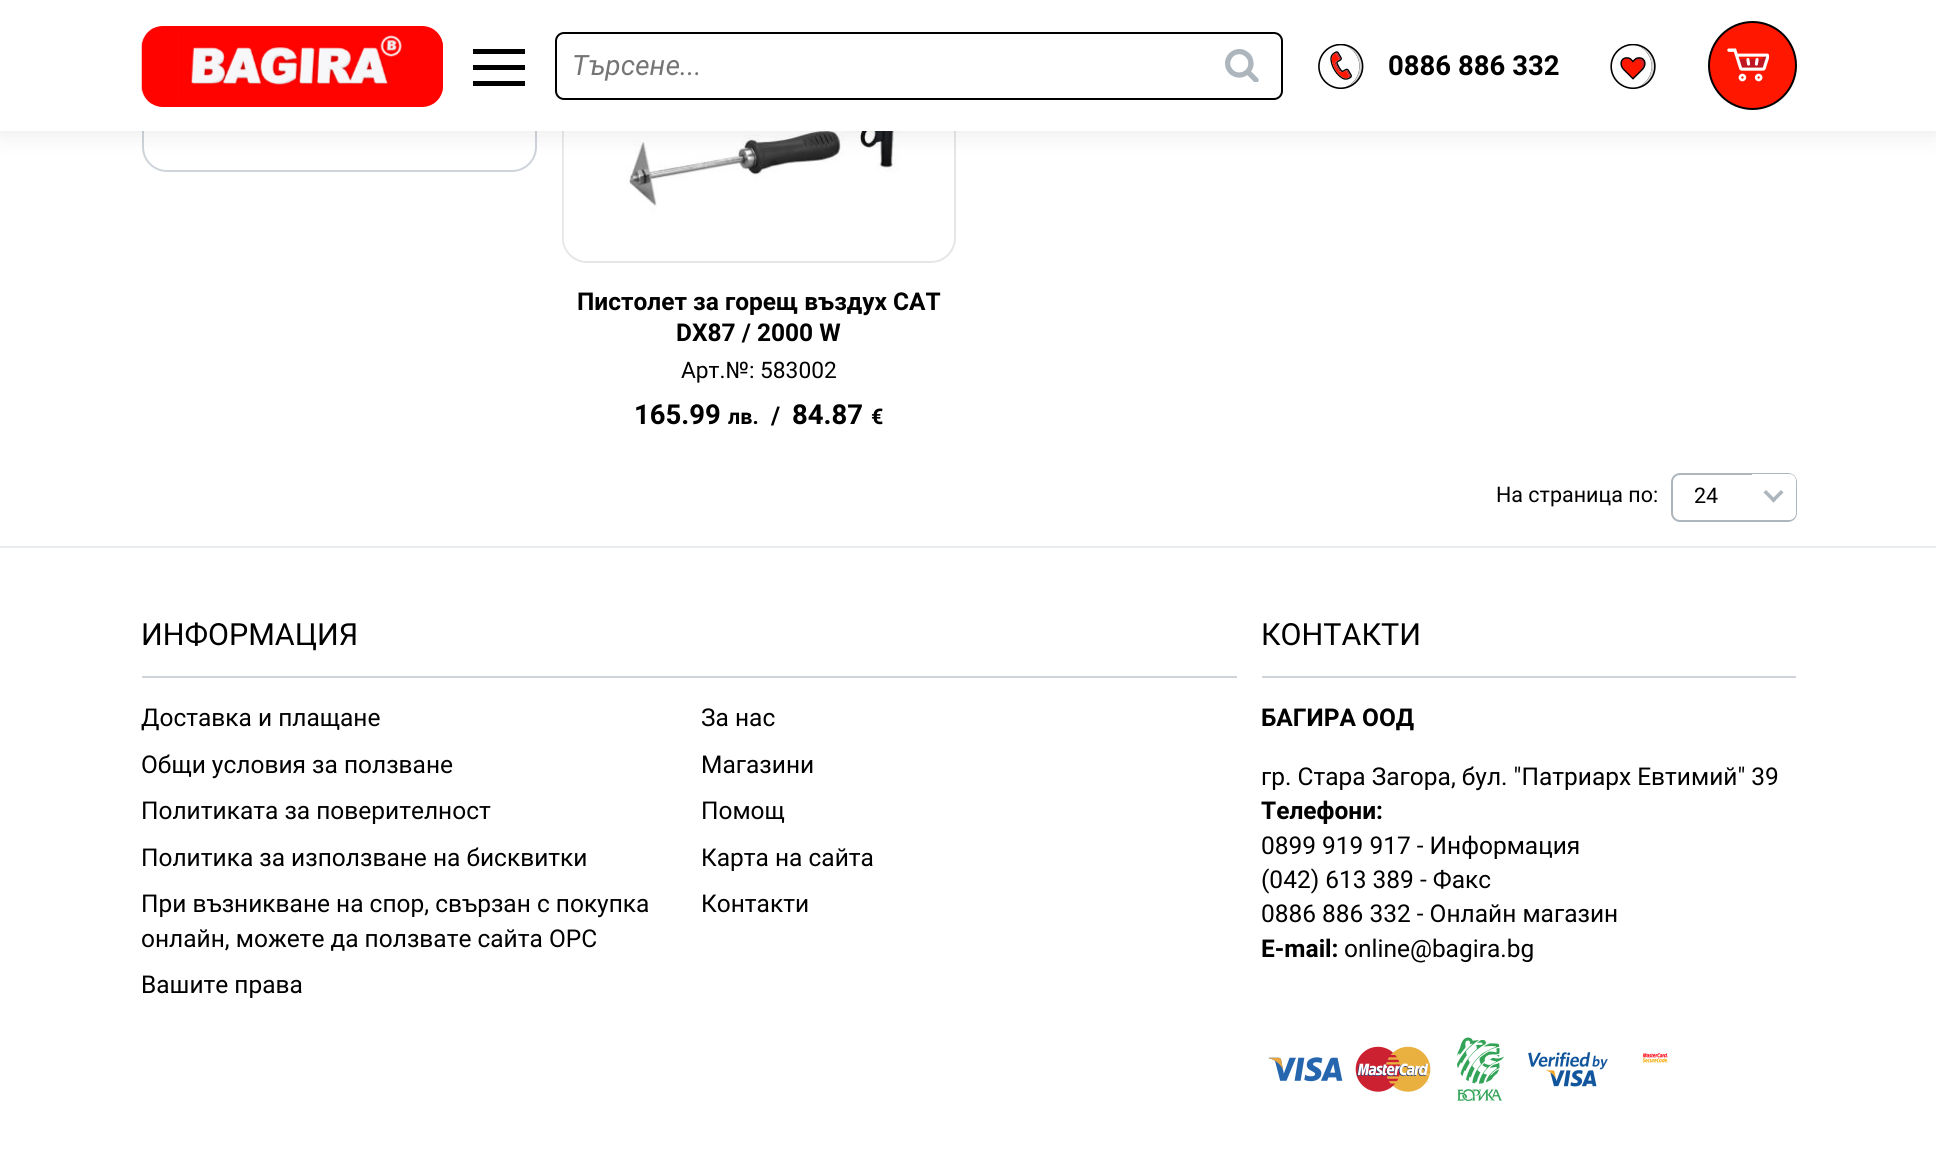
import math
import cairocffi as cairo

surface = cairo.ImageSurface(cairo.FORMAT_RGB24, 1936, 1153)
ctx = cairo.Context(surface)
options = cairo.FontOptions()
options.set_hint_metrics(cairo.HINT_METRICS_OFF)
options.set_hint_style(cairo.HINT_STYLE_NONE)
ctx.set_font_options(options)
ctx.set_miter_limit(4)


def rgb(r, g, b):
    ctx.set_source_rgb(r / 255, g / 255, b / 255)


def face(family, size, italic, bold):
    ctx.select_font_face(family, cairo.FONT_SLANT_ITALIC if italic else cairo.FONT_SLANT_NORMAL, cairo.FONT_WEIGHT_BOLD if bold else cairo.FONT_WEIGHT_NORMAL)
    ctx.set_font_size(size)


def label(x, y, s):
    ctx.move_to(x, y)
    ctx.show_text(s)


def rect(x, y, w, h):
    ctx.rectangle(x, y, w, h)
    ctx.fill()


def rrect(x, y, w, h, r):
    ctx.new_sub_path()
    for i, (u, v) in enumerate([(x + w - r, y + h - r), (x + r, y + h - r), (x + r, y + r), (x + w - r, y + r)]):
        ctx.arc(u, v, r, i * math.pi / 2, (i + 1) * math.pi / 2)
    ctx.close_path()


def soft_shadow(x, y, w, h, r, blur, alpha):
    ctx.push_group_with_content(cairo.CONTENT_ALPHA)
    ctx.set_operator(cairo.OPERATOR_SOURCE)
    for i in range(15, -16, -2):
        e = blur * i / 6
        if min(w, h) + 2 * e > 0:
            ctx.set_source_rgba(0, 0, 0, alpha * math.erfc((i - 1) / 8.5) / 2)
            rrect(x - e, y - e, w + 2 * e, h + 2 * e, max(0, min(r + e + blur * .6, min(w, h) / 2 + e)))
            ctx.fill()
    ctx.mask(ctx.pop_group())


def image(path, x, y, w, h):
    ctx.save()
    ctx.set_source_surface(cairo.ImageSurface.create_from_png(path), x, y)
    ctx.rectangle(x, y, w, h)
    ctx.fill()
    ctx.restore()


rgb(255, 255, 255)
ctx.paint()
rrect(143, -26, 393, 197, 24)
rgb(206, 212, 218)
ctx.stroke()
rrect(563, -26, 392, 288, 24)
rgb(230, 230, 230)
ctx.stroke()
image('image5.png', 563, 131, 358, 121)
rgb(0, 0, 0)
soft_shadow(0, 0, 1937, 131, 0, 13, 0.1)
rgb(255, 255, 255)
rect(0, 0, 1936, 131)
rgb(255, 3, 0)
rrect(142, 26, 301, 81, 21)
ctx.fill()
image('image0.png', 141, 27, 302, 77)
rgb(0, 0, 0)
rect(473, 65, 52, 5)
rect(473, 49, 52, 5)
rect(473, 81, 52, 5)
rrect(556, 33, 726, 66, 8)
ctx.stroke()
face('Roboto', 28, 1, 0)
rgb(117, 117, 117)
label(572, 75, 'Търсене...')
image('image1.png', 1225, 49, 34, 33)
image('image2.png', 1318, 44, 46, 45)
face('Roboto', 27.5, 0, 1)
rgb(0, 0, 0)
label(1388, 75, '0886 886 332')
image('image3.png', 1610, 44, 46, 45)
rgb(255, 23, 0)
ctx.arc(1752.5, 65.5, 43.5, 0, 2 * math.pi)
ctx.fill_preserve()
rgb(0, 0, 0)
ctx.stroke()
image('image4.png', 1727, 48, 42, 34)
face('Roboto', 24.5, 0, 1)
label(577, 310, 'Пистолет за горещ въздух CAT')
label(676, 341, 'DX87 / 2000 W')
face('Roboto', 22.75, 0, 0)
label(681, 378, 'Арт.№: 583002')
face('Roboto', 27.5, 0, 1)
label(634, 424, '165.99')
face('Roboto', 21.5, 0, 1)
label(728, 424, 'лв.')
face('Roboto', 24.5, 0, 1)
label(771, 424, '/')
face('Roboto', 27.5, 0, 1)
label(792, 424, '84.87')
face('Roboto', 21.5, 0, 1)
label(871, 424, '€')
face('Roboto', 21.5, 0, 0)
label(1496, 502, 'На страница по:')
rrect(1672, 474, 124, 47, 8)
rgb(173, 181, 189)
ctx.stroke()
rgb(0, 0, 0)
label(1694, 503, '24')
rgb(255, 255, 255)
ctx.new_path()
ctx.move_to(1752, 474)
ctx.line_to(1789, 474)
ctx.curve_to(1793, 474, 1796, 477, 1796, 481)
ctx.line_to(1796, 513)
ctx.curve_to(1796, 517, 1793, 520, 1789, 520)
ctx.line_to(1752, 520)
ctx.close_path()
ctx.fill()
rgb(173, 181, 189)
ctx.new_path()
ctx.move_to(1781, 490)
ctx.line_to(1783.5, 492.5)
ctx.line_to(1773.5, 502.5)
ctx.line_to(1771, 500)
ctx.close_path()
ctx.fill()
ctx.new_path()
ctx.move_to(1766, 490)
ctx.line_to(1776, 500)
ctx.line_to(1773.5, 502.5)
ctx.line_to(1763.5, 492.5)
ctx.close_path()
ctx.fill()
rgb(233, 236, 239)
rect(0, 546, 1936, 2)
rgb(206, 212, 218)
rect(142, 676, 1095, 2)
face('Roboto', 30.5, 0, 0)
rgb(0, 0, 0)
label(141, 645, 'ИНФОРМАЦИЯ')
face('Roboto', 24.5, 0, 0)
label(141, 726, 'Доставка и плащане')
label(141, 773, 'Общи условия за ползване')
label(141, 819, 'Политиката за поверителност')
label(141, 866, 'Политика за използване на бисквитки')
label(141, 912, 'При възникване на спор, свързан с покупка')
label(141, 947, 'онлайн, можете да ползвате сайта ОРС')
label(141, 993, 'Вашите права')
label(701, 726, 'За нас')
label(701, 773, 'Магазини')
label(701, 819, 'Помощ')
label(701, 866, 'Карта на сайта')
label(701, 912, 'Контакти')
rgb(206, 212, 218)
rect(1262, 676, 534, 2)
face('Roboto', 30.5, 0, 0)
rgb(0, 0, 0)
label(1261, 645, 'КОНТАКТИ')
face('Roboto', 24.5, 0, 1)
label(1261, 726, 'БАГИРА ООД')
face('Roboto', 24.5, 0, 0)
label(1261, 785, 'гр. Стара Загора, бул. "Патриарх Евтимий" 39')
face('Roboto', 24.5, 0, 1)
label(1261, 819, 'Телефони:')
face('Roboto', 24.5, 0, 0)
label(1261, 854, '0899 919 917 - Информация')
label(1261, 888, '(042) 613 389 - Факс')
label(1261, 922, '0886 886 332 - Онлайн магазин')
face('Roboto', 24.5, 0, 1)
label(1261, 957, 'E-mail:')
face('Roboto', 24.5, 0, 0)
label(1344, 957, 'online@bagira.bg')
image('image6.png', 1268, 1057, 75, 25)
image('image7.png', 1355, 1046, 76, 46)
image('image8.png', 1457, 1037, 47, 64)
image('image9.png', 1528, 1052, 80, 35)
image('image10.png', 1642, 1053, 27, 10)
surface.write_to_png('render.png')
